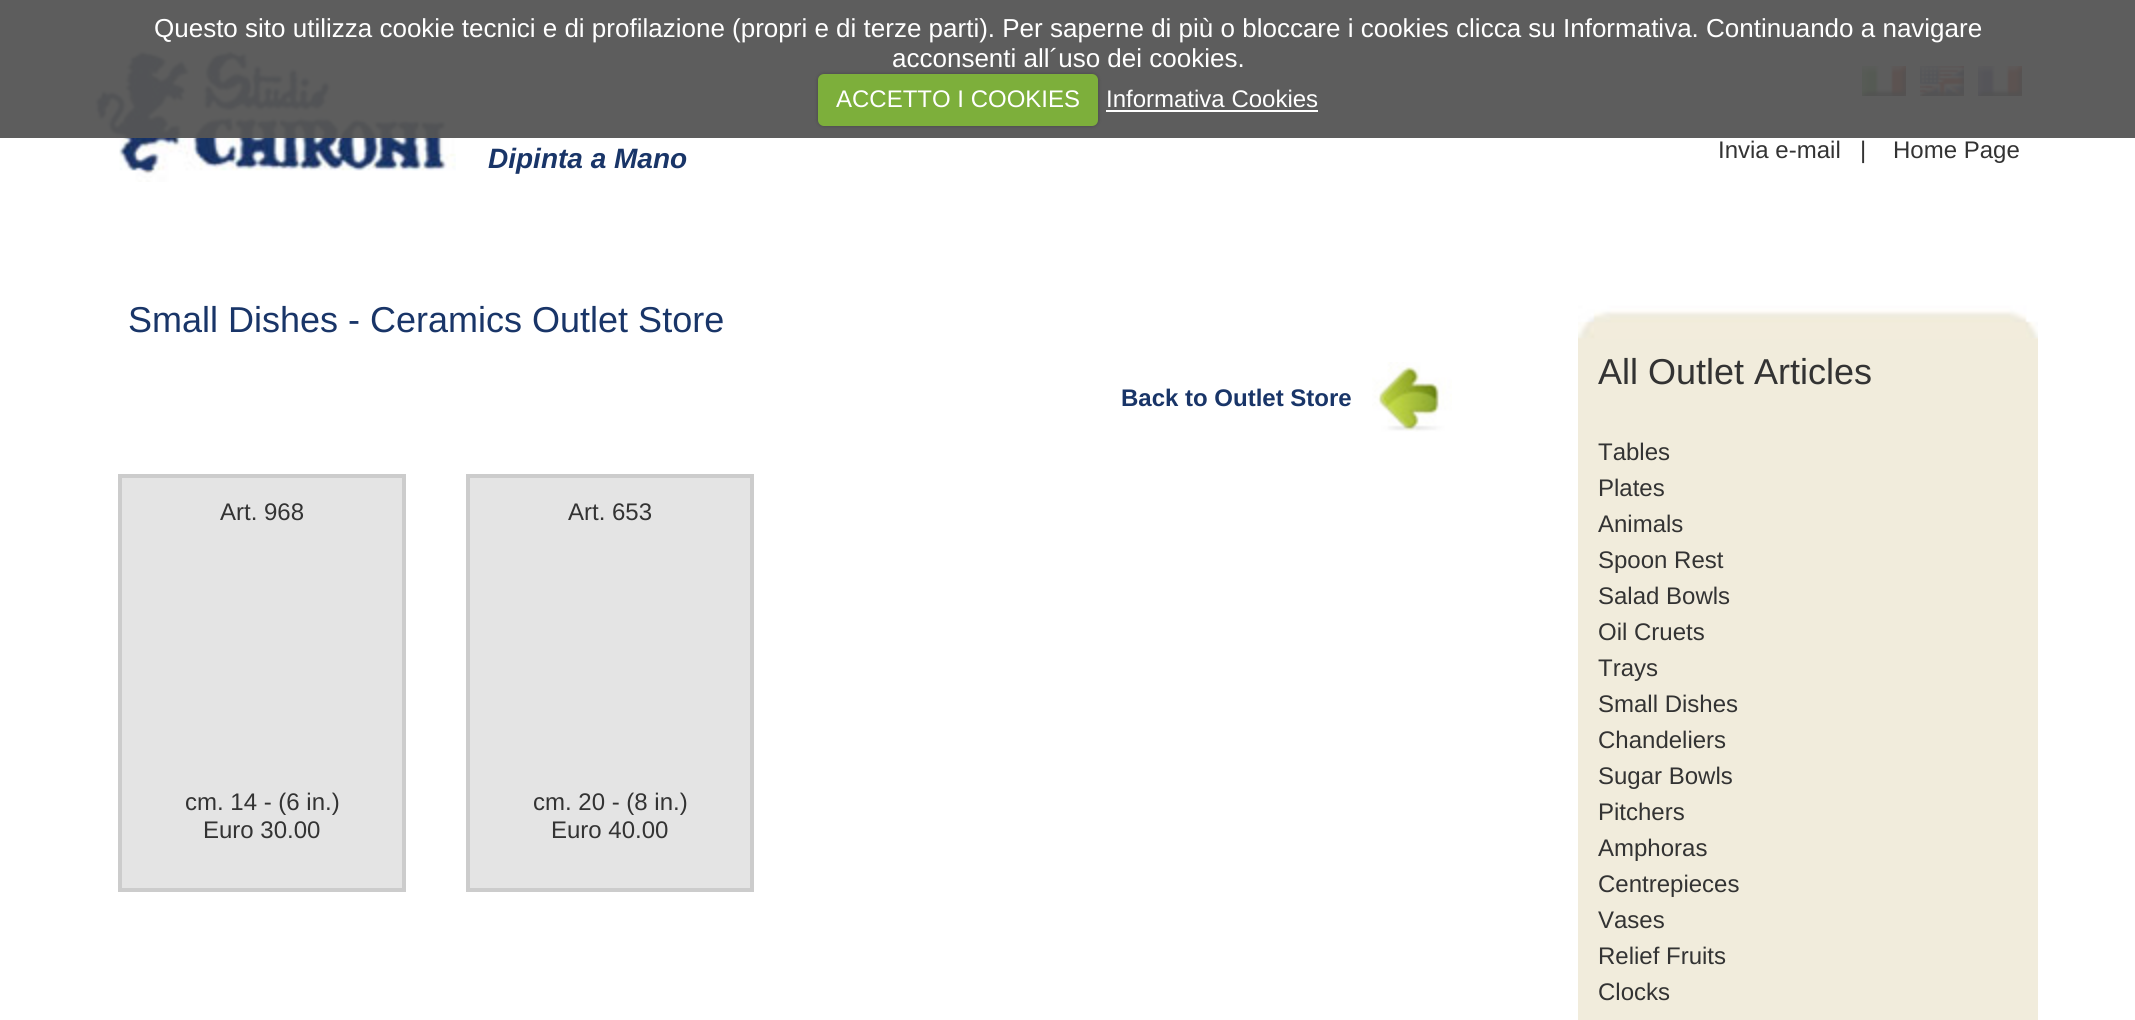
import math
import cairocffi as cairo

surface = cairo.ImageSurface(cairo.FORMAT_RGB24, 2135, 1020)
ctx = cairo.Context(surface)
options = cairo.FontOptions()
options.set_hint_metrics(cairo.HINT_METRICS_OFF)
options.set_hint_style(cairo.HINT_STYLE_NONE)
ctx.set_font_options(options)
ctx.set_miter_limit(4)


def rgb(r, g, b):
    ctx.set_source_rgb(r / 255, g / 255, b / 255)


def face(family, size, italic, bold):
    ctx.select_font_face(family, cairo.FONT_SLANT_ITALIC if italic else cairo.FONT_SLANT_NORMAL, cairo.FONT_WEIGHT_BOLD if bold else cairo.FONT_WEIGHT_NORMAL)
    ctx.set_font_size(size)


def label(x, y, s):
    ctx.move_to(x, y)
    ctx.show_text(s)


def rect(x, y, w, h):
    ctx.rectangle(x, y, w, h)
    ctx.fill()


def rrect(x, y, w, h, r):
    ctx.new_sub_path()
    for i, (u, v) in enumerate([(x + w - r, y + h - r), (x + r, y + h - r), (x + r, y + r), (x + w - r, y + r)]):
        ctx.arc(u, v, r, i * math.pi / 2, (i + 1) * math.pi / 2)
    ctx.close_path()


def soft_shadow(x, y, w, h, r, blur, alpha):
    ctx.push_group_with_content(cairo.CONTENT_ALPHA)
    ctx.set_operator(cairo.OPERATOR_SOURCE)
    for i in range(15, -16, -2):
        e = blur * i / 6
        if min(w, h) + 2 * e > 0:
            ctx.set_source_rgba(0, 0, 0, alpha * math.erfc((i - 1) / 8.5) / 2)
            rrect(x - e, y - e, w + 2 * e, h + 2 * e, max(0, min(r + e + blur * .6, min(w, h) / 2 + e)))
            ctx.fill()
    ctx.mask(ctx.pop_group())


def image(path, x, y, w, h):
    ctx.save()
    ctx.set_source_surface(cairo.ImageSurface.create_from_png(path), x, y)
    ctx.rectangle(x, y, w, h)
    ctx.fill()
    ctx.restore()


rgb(255, 255, 255)
ctx.paint()
image('image0.png', 88, 42, 368, 140)
image('image1.png', 1862, 66, 44, 30)
image('image2.png', 1920, 66, 44, 30)
image('image3.png', 1978, 66, 44, 30)
ctx.set_source_rgba(0.337, 0.337, 0.337, 0.95)
rect(0, 0, 2135, 138)
face('Liberation Sans', 26, 0, 0)
rgb(255, 255, 255)
label(154, 37, 'Questo sito utilizza cookie tecnici e di profilazione (propri e di terze parti). Per saperne di più o bloccare i cookies clicca su Informativa. Continuando a navigare')
label(892, 67, 'acconsenti all´uso dei cookies.')
rgb(0, 0, 0)
soft_shadow(818, 74, 280, 52, 6, 2, 0.25)
rgb(125, 175, 59)
rrect(818, 74, 280, 52, 6)
ctx.fill()
face('Liberation Sans', 24, 0, 0)
rgb(255, 255, 255)
label(836, 107, 'ACCETTO I COOKIES')
label(1106, 107, 'Informativa Cookies')
rect(1106, 110, 212, 2)
face('Liberation Sans', 28, 1, 1)
rgb(25, 53, 104)
label(488, 168, 'Dipinta a Mano')
face('Liberation Sans', 24, 0, 0)
rgb(51, 51, 51)
label(1718, 158, 'Invia e-mail')
label(1860, 158, '|')
label(1893, 158, 'Home Page')
face('Liberation Sans', 36, 0, 0)
rgb(25, 53, 104)
label(128, 332, 'Small Dishes - Ceramics Outlet Store')
face('Liberation Sans', 24, 0, 1)
label(1121, 406, 'Back to Outlet Store')
image('image4.png', 1372, 362, 80, 70)
rgb(228, 228, 228)
ctx.rectangle(120, 476, 284, 414)
ctx.fill_preserve()
rgb(204, 204, 204)
ctx.set_line_width(4)
ctx.stroke()
face('Liberation Sans', 24, 0, 0)
rgb(51, 51, 51)
label(220, 520, 'Art. 968')
label(185, 810, 'cm. 14 - (6 in.)')
label(203, 838, 'Euro 30.00')
rgb(228, 228, 228)
ctx.rectangle(468, 476, 284, 414)
ctx.fill_preserve()
rgb(204, 204, 204)
ctx.stroke()
rgb(51, 51, 51)
label(568, 520, 'Art. 653')
label(533, 810, 'cm. 20 - (8 in.)')
label(551, 838, 'Euro 40.00')
rgb(241, 236, 220)
rect(1578, 339, 460, 681)
image('image5.png', 1578, 290, 460, 49)
face('Liberation Sans', 36, 0, 0)
rgb(51, 51, 51)
label(1598, 384, 'All Outlet Articles')
face('Liberation Sans', 24, 0, 0)
label(1598, 460, 'Tables')
label(1598, 496, 'Plates')
label(1598, 532, 'Animals')
label(1598, 568, 'Spoon Rest')
label(1598, 604, 'Salad Bowls')
label(1598, 640, 'Oil Cruets')
label(1598, 676, 'Trays')
label(1598, 712, 'Small Dishes')
label(1598, 748, 'Chandeliers')
label(1598, 784, 'Sugar Bowls')
label(1598, 820, 'Pitchers')
label(1598, 856, 'Amphoras')
label(1598, 892, 'Centrepieces')
label(1598, 928, 'Vases')
label(1598, 964, 'Relief Fruits')
label(1598, 1000, 'Clocks')
surface.write_to_png('render.png')
